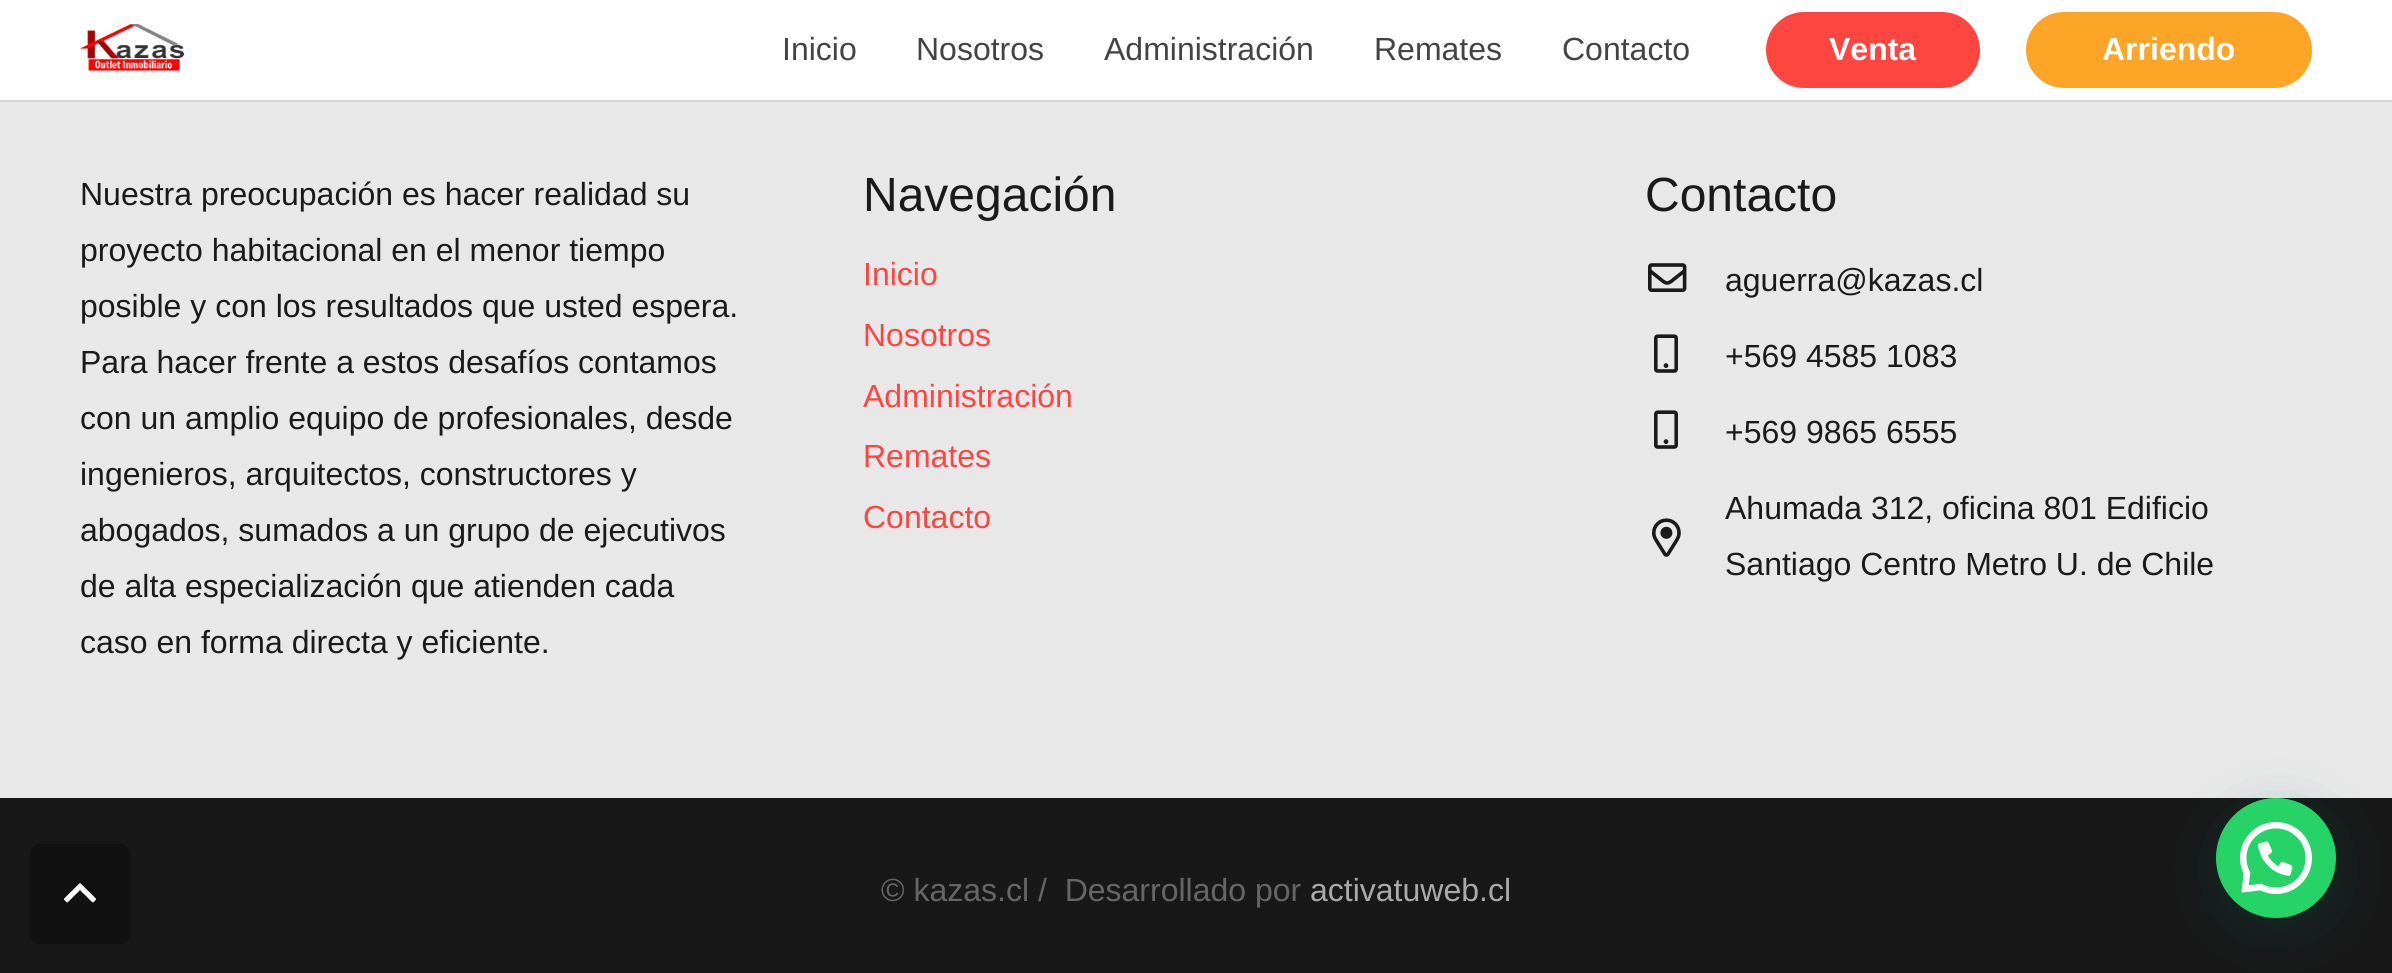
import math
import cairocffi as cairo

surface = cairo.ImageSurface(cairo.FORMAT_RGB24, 2392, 973)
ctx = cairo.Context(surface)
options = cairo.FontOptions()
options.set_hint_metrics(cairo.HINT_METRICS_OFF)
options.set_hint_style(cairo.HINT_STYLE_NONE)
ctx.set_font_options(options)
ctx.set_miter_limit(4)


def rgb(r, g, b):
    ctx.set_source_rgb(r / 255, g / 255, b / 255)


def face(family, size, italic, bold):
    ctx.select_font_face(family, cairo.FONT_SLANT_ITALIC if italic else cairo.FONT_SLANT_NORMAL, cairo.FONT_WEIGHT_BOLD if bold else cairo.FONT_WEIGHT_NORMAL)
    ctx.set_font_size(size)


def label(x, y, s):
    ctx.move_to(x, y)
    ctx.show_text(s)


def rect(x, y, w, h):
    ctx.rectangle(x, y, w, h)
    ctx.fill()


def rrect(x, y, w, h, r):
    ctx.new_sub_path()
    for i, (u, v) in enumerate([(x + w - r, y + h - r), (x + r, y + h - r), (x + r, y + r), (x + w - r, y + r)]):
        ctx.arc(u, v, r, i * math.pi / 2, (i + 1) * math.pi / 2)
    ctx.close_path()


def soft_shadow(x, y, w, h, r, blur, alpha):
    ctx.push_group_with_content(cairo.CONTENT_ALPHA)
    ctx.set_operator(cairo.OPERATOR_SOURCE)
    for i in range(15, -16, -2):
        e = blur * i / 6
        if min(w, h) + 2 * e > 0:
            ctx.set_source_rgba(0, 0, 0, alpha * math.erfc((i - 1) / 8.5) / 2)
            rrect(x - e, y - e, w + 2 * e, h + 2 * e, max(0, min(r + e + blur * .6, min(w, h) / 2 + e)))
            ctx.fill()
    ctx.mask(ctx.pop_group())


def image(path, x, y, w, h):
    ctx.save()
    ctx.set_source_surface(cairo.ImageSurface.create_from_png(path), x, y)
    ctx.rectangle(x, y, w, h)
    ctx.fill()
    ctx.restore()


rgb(232, 232, 232)
ctx.paint()
rgb(213, 213, 213)
rect(0, 100, 2392, 2)
rgb(255, 255, 255)
rect(0, 0, 2392, 100)
image('image0.png', 80, 24, 104, 47)
face('Liberation Sans', 32, 0, 0)
rgb(68, 68, 68)
label(782, 60, 'Inicio')
label(916, 60, 'Nosotros')
label(1104, 60, 'Administración')
label(1374, 60, 'Remates')
label(1562, 60, 'Contacto')
rgb(254, 70, 65)
rrect(1766, 12, 214, 76, 38)
ctx.fill()
face('Liberation Sans', 32, 0, 1)
rgb(255, 255, 255)
label(1829, 60, 'Venta')
rgb(253, 165, 39)
rrect(2026, 12, 286, 76, 38)
ctx.fill()
rgb(255, 255, 255)
label(2102, 60, 'Arriendo')
rgb(24, 24, 24)
rect(0, 798, 2392, 175)
rgb(17, 17, 17)
rrect(30, 844, 100, 100, 10)
ctx.fill()
image('image1.png', 64, 883, 32, 20)
face('Liberation Sans', 32, 0, 0)
rgb(26, 26, 26)
label(80, 205, 'Nuestra preocupación es hacer realidad su')
label(80, 261, 'proyecto habitacional en el menor tiempo')
label(80, 317, 'posible y con los resultados que usted espera.')
label(80, 373, 'Para hacer frente a estos desafíos contamos')
label(80, 429, 'con un amplio equipo de profesionales, desde')
label(80, 485, 'ingenieros, arquitectos, constructores y')
label(80, 541, 'abogados, sumados a un grupo de ejecutivos')
label(80, 597, 'de alta especialización que atienden cada')
label(80, 653, 'caso en forma directa y eficiente.')
face('Liberation Sans', 48, 0, 0)
label(863, 211, 'Navegación')
face('Liberation Sans', 32, 0, 0)
rgb(254, 70, 65)
label(863, 285, 'Inicio')
label(863, 346, 'Nosotros')
label(863, 407, 'Administración')
label(863, 467, 'Remates')
label(863, 528, 'Contacto')
face('Liberation Sans', 48, 0, 0)
rgb(26, 26, 26)
label(1645, 211, 'Contacto')
image('image2.png', 1648, 263, 39, 29)
face('Liberation Sans', 32, 0, 0)
label(1725, 291, 'aguerra@kazas.cl')
image('image3.png', 1654, 334, 24, 39)
label(1725, 367, '+569 4585 1083')
image('image3.png', 1654, 410, 24, 39)
label(1725, 443, '+569 9865 6555')
image('image4.png', 1652, 518, 29, 39)
label(1725, 519, 'Ahumada 312, oficina 801 Edificio')
label(1725, 575, 'Santiago Centro Metro U. de Chile')
rgb(102, 102, 102)
label(881, 901, '© kazas.cl /  Desarrollado por')
rgb(170, 170, 170)
label(1310, 901, 'activatuweb.cl')
rgb(7, 94, 84)
soft_shadow(2218, 810, 120, 120, 60, 24, 0.24)
rgb(37, 211, 102)
ctx.arc(2276, 858, 60, 0, 2 * math.pi)
ctx.fill()
image('image5.png', 2240, 822, 72, 72)
surface.write_to_png('render.png')
